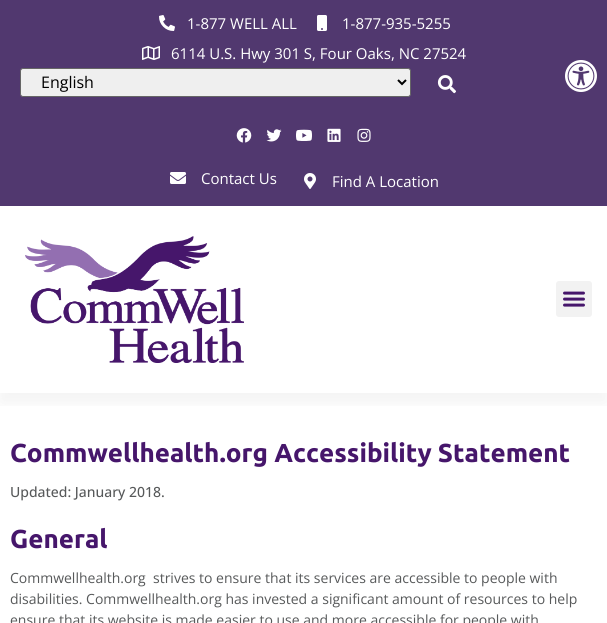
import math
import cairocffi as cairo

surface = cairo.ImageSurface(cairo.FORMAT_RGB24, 607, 623)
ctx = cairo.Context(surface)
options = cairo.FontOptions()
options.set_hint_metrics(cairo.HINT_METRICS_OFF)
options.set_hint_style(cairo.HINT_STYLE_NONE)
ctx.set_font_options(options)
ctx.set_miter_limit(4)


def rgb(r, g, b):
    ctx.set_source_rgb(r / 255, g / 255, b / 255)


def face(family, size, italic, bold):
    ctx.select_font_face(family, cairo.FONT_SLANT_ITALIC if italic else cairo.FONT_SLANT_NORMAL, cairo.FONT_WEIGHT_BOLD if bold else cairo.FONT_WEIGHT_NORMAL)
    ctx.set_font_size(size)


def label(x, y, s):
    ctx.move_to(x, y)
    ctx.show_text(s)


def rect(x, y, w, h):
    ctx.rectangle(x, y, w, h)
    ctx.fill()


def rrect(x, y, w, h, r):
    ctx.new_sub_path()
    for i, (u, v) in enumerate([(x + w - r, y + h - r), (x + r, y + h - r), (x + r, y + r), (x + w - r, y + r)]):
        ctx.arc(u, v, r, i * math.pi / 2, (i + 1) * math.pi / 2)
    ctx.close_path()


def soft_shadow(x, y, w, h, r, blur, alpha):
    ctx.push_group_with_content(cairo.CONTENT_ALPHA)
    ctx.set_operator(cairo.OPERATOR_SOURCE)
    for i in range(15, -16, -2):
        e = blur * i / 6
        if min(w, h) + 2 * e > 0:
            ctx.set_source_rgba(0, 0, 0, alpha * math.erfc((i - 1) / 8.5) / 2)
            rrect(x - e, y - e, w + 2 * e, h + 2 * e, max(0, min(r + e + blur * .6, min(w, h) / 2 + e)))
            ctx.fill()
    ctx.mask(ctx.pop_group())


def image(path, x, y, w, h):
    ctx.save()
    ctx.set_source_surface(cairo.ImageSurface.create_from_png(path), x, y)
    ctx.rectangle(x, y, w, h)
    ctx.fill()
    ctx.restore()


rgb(255, 255, 255)
ctx.paint()
rgb(81, 56, 111)
rect(0, 0, 607, 206)
image('image0.png', 159, 15, 16, 16)
face('Open Sans', 15, 0, 0)
rgb(255, 255, 255)
label(187, 29, '1-877 WELL ALL')
image('image1.png', 317, 15, 10, 16)
label(342, 29, '1-877-935-5255')
image('image2.png', 142, 46, 18, 14)
label(171, 59, '6114 U.S. Hwy 301 S, Four Oaks, NC 27524')
rgb(239, 239, 239)
rrect(20.5, 68.5, 390, 28, 2.5)
ctx.fill_preserve()
rgb(102, 102, 102)
ctx.set_line_width(1)
ctx.stroke()
ctx.new_path()
ctx.move_to(398, 80)
ctx.line_to(402, 84)
ctx.line_to(406, 80)
rgb(0, 0, 0)
ctx.set_line_width(2)
ctx.stroke()
face('Open Sans', 16, 0, 0)
label(41, 88, 'English')
image('image3.png', 437, 75, 19, 19)
image('image4.png', 236, 128, 16, 15)
image('image5.png', 266, 129, 16, 13)
image('image6.png', 296, 129, 16, 12)
image('image7.png', 327, 128, 14, 14)
image('image8.png', 357, 128, 14, 14)
image('image9.png', 170, 172, 16, 12)
face('Open Sans', 15, 0, 0)
rgb(255, 255, 255)
label(201, 184, 'Contact Us')
image('image10.png', 304, 173, 12, 16)
label(332, 187, 'Find A Location')
ctx.save()
ctx.rectangle(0, 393, 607, 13)
ctx.clip()
rgb(0, 0, 0)
soft_shadow(0, 216, 607, 187, 0, 10, 0.05)
ctx.restore()
image('image11.png', 25, 236, 219, 127)
rgb(242, 242, 242)
rrect(556, 281, 36, 36, 3)
ctx.fill()
image('image12.png', 563, 291, 22, 16)
image('image13.png', 565, 60, 32, 32)
face('Ubuntu', 26, 0, 1)
rgb(70, 22, 107)
label(10, 462, 'Commwellhealth.org Accessibility Statement')
face('Open Sans Medium', 14, 0, 0)
rgb(87, 89, 90)
label(10, 497, 'Updated: January 2018.')
face('Ubuntu', 26, 0, 1)
rgb(70, 22, 107)
label(10, 548, 'General')
face('Open Sans', 14, 0, 0)
rgb(87, 89, 90)
label(10, 583, 'Commwellhealth.org  strives to ensure that its services are accessible to people with')
label(10, 604, 'disabilities. Commwellhealth.org has invested a significant amount of resources to help')
label(10, 625, 'ensure that its website is made easier to use and more accessible for people with')
surface.write_to_png('render.png')
